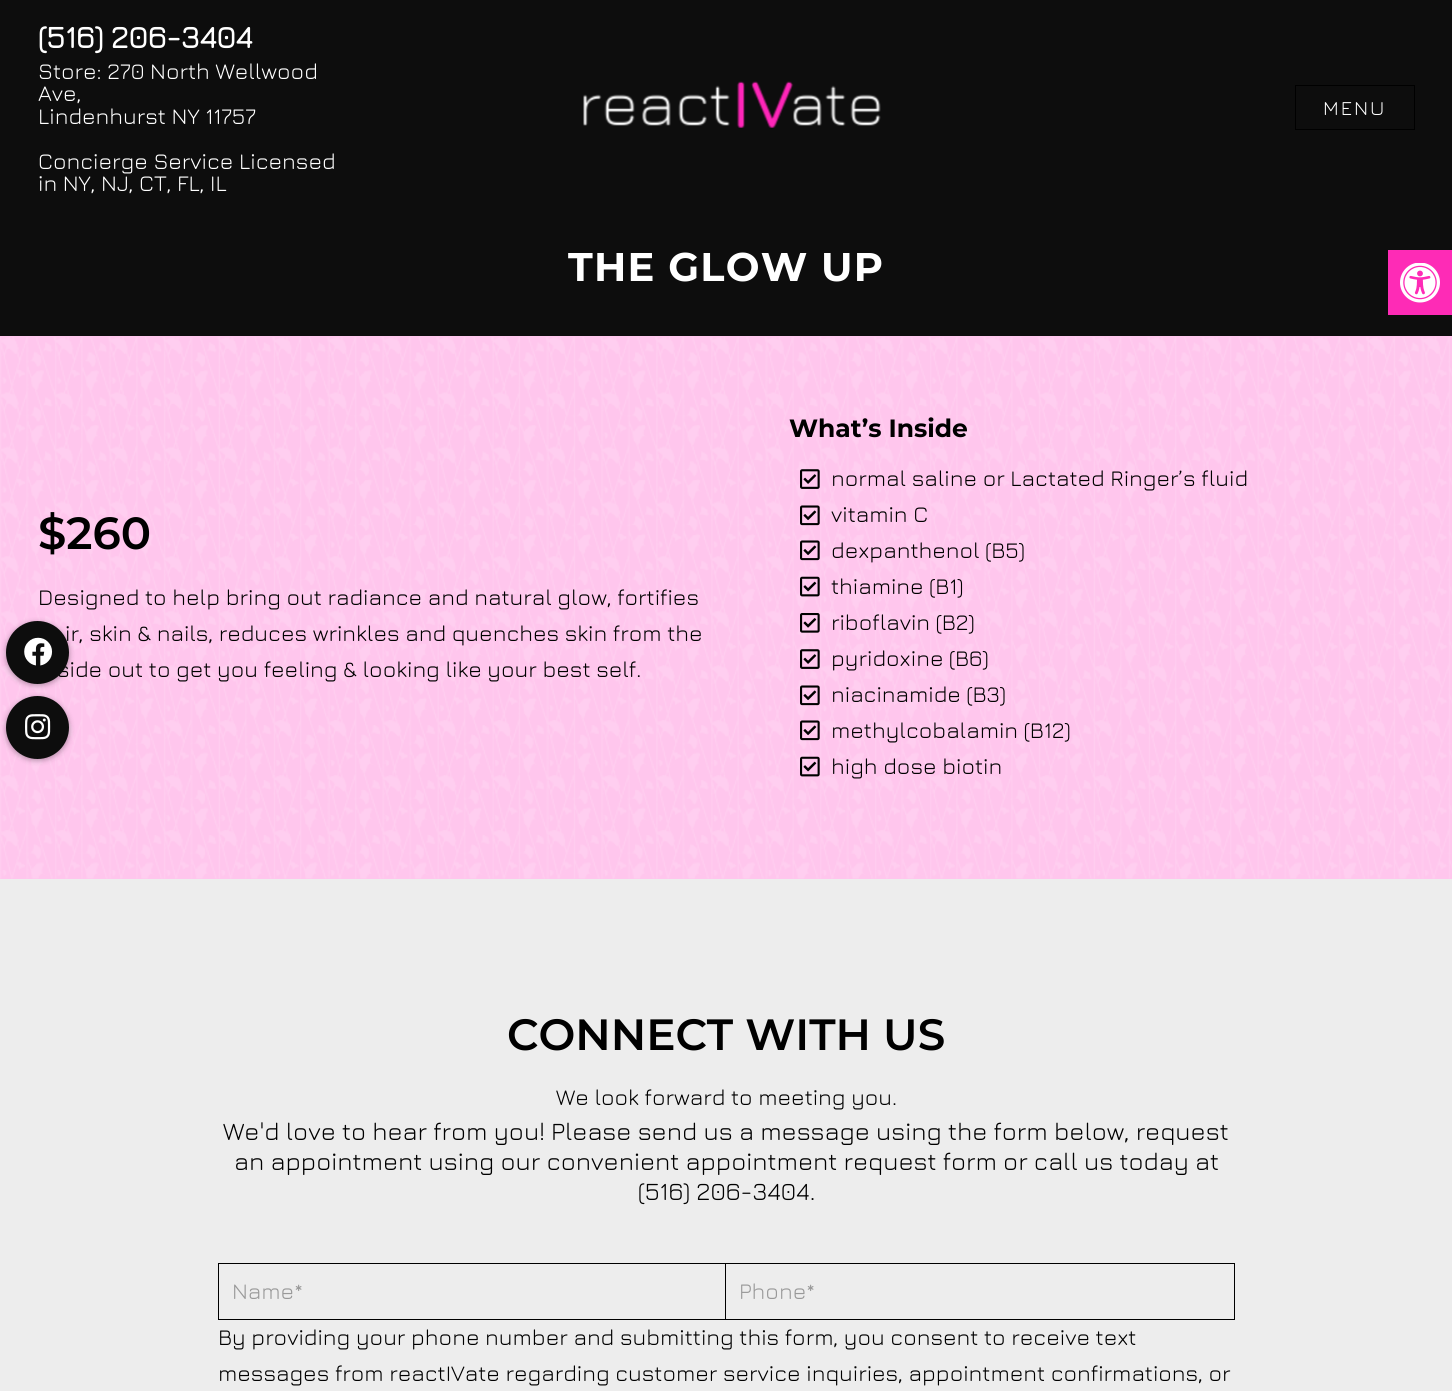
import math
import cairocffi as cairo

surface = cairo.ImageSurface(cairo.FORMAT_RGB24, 1452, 1391)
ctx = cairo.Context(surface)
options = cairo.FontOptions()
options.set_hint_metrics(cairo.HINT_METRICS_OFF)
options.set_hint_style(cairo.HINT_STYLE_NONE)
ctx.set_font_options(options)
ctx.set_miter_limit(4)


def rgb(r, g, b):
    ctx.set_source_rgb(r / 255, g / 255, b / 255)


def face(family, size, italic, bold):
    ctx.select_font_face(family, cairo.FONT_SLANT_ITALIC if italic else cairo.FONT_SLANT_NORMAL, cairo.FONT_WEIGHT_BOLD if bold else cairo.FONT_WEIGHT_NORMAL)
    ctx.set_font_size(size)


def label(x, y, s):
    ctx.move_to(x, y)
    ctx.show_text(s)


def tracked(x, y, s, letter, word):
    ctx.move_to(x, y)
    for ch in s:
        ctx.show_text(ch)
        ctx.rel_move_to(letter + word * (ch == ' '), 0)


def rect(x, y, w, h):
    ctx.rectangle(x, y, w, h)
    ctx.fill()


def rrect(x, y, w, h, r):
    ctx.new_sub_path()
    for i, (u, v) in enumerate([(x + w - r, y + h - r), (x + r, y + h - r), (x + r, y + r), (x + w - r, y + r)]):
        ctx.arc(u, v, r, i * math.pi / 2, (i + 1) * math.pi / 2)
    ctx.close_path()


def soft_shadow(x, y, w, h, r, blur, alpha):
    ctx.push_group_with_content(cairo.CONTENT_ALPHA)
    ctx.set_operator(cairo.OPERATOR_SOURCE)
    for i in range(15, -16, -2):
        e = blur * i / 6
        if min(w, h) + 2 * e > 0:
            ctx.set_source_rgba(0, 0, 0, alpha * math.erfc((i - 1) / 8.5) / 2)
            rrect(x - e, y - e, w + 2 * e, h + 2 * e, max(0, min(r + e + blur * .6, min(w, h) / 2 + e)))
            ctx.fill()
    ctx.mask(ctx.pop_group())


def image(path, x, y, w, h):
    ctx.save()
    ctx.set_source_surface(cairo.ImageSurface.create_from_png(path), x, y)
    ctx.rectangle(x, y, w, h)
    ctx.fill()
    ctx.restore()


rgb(237, 237, 237)
ctx.paint()
rgb(13, 13, 13)
rect(0, 0, 1452, 336)
face('Jura', 31.25, 0, 1)
rgb(255, 255, 255)
label(38, 48, '(516) 206-3404')
face('Jura Light', 22.5, 0, 0)
label(38, 79, 'Store: 270 North Wellwood')
label(38, 101, 'Ave,')
label(38, 124, 'Lindenhurst NY 11757')
label(38, 169, 'Concierge Service Licensed')
label(38, 191, 'in NY, NJ, CT, FL, IL')
image('image0.png', 583, 81, 298, 47)
ctx.rectangle(1295.5, 85.5, 119, 44)
rgb(0, 0, 0)
ctx.set_line_width(1)
ctx.stroke()
face('Jura Light', 20, 0, 0)
rgb(255, 255, 255)
tracked(1323, 115, 'MENU', 2, 0)
face('Montserrat', 40, 0, 1)
tracked(568, 281, 'THE GLOW UP', 1.25, 0)
rgb(255, 198, 237)
rect(0, 336, 1452, 543)
image('image1.png', 0, 337, 1452, 542)
face('Montserrat SemiBold', 45, 0, 0)
rgb(0, 0, 0)
label(38, 549, '$260')
face('Jura Light', 22.5, 0, 0)
label(38, 605, 'Designed to help bring out radiance and natural glow, fortifies')
label(65, 641, 'ir, skin & nails, reduces wrinkles and quenches skin from the')
label(57, 677, 'side out to get you feeling & looking like your best self.')
face('Montserrat', 25, 0, 1)
label(789, 437, 'What’s Inside')
image('image2.png', 800, 469, 20, 20)
face('Jura Light', 22.5, 0, 0)
label(831, 486, 'normal saline or Lactated Ringer’s fluid')
image('image3.png', 800, 505, 20, 21)
label(831, 522, 'vitamin C')
image('image4.png', 800, 540, 20, 21)
label(831, 558, 'dexpanthenol (B5)')
image('image5.png', 800, 576, 20, 21)
label(831, 594, 'thiamine (B1)')
image('image6.png', 800, 613, 20, 20)
label(831, 630, 'riboflavin (B2)')
image('image7.png', 800, 649, 20, 20)
label(831, 666, 'pyridoxine (B6)')
image('image8.png', 800, 685, 20, 21)
label(831, 702, 'niacinamide (B3)')
image('image9.png', 800, 720, 20, 21)
label(831, 738, 'methylcobalamin (B12)')
image('image10.png', 800, 756, 20, 21)
label(831, 774, 'high dose biotin')
rgb(0, 0, 0)
soft_shadow(6, 623, 63, 62, 31, 3, 0.34)
rgb(13, 13, 13)
ctx.arc(37.5, 652.5, 31.5, 0, 2 * math.pi)
ctx.fill()
image('image11.png', 24, 637, 29, 29)
rgb(0, 0, 0)
soft_shadow(6, 698, 63, 62, 31, 3, 0.34)
rgb(13, 13, 13)
ctx.arc(37.5, 727.5, 31.5, 0, 2 * math.pi)
ctx.fill()
image('image12.png', 25, 714, 26, 26)
face('Montserrat SemiBold', 43.75, 0, 0)
rgb(0, 0, 0)
label(507, 1050, 'CONNECT WITH US')
face('Jura Light', 22.5, 0, 0)
label(556, 1105, 'We look forward to meeting you.')
face('Jura Light', 25, 0, 0)
label(223, 1140, 'We\'d love to hear from you! Please send us a message using the form below, request')
label(234, 1170, 'an appointment using our convenient appointment request form or call us today at')
label(638, 1200, '(516) 206-3404.')
ctx.rectangle(218.5, 1263.5, 507, 56)
ctx.stroke()
face('Jura Light', 22.5, 0, 0)
rgb(153, 153, 153)
label(232, 1299, 'Name*')
rgb(0, 0, 0)
rect(726, 1263, 509, 1)
rect(1234, 1263, 1, 57)
rect(726, 1319, 509, 1)
rgb(153, 153, 153)
label(739, 1299, 'Phone*')
rgb(0, 0, 0)
label(218, 1345, 'By providing your phone number and submitting this form, you consent to receive text')
label(218, 1381, 'messages from reactIVate regarding customer service inquiries, appointment confirmations, or')
rgb(254, 43, 182)
rect(1388, 250, 64, 65)
image('image13.png', 1400, 263, 40, 40)
surface.write_to_png('render.png')
